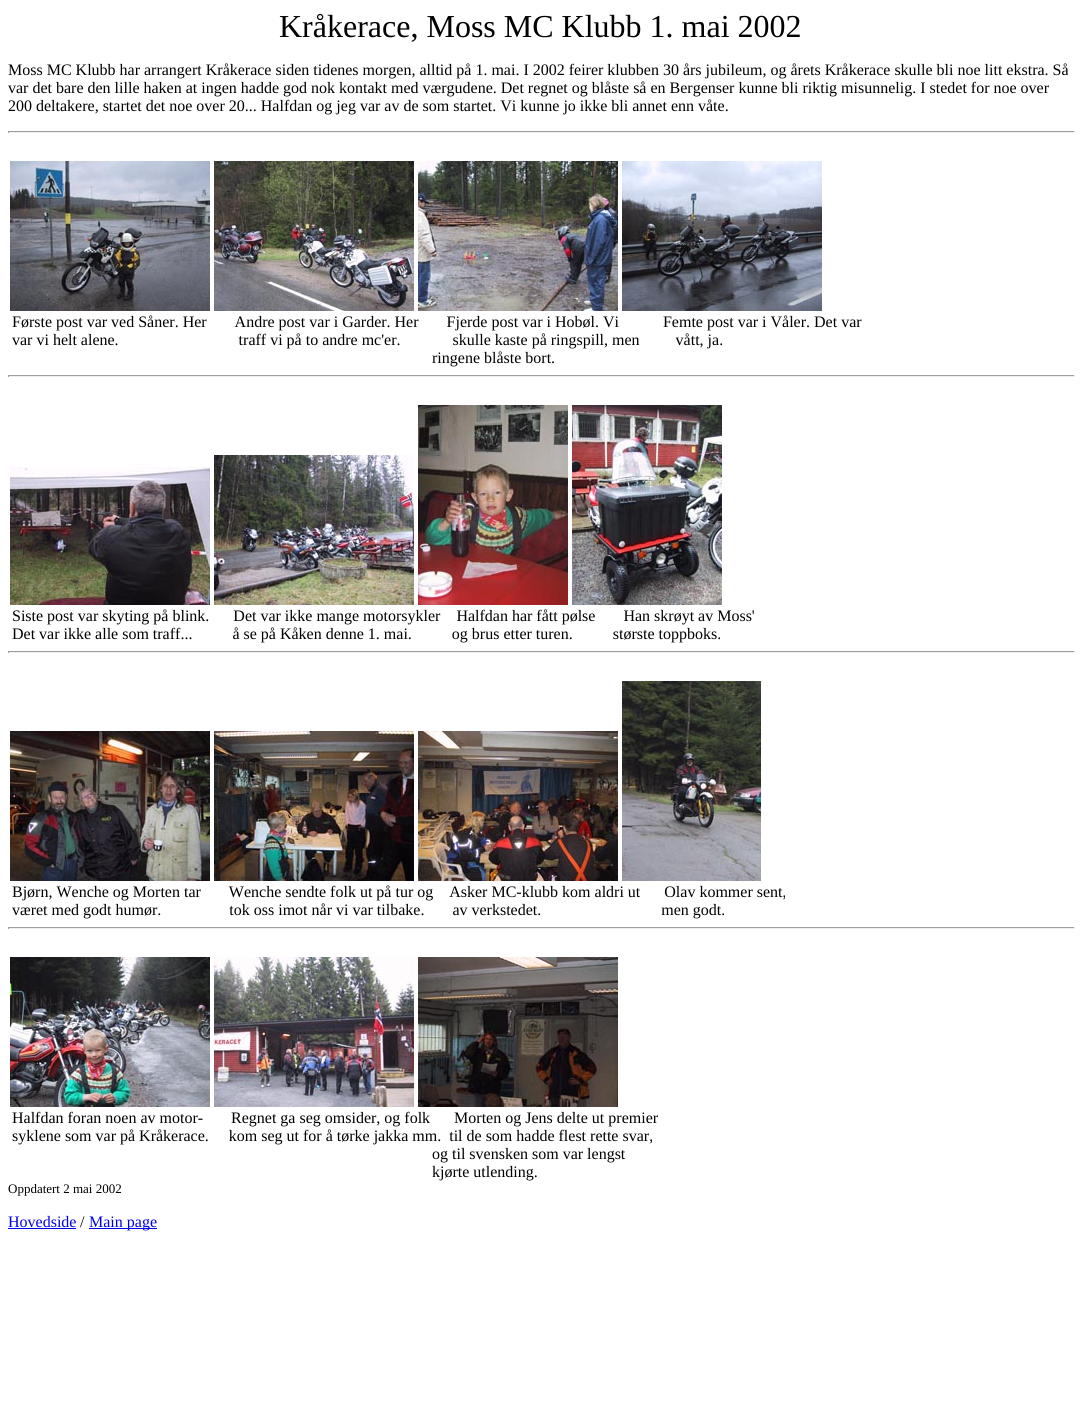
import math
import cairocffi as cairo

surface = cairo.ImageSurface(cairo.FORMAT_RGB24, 1081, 1410)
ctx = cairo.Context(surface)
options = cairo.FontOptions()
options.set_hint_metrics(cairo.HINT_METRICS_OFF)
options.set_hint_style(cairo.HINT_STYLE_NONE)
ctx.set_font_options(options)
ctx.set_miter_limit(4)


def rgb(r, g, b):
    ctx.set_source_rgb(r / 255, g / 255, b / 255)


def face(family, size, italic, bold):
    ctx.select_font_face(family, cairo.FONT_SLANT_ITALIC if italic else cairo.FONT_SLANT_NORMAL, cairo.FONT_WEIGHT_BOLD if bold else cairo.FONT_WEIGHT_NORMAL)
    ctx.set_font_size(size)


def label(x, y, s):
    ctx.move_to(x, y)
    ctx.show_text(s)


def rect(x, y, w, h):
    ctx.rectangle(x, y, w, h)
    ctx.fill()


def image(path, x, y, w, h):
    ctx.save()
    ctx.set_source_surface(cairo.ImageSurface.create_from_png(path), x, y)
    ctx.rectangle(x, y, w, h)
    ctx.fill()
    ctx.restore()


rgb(255, 255, 255)
ctx.paint()
face('Liberation Serif', 32, 0, 0)
rgb(0, 0, 0)
label(279, 37, 'Kråkerace, Moss MC Klubb 1. mai 2002')
face('Liberation Serif', 16, 0, 0)
label(8, 75, 'Moss MC Klubb har arrangert Kråkerace siden tidenes morgen, alltid på 1. mai. I 2002 feirer klubben 30 års jubileum, og årets Kråkerace skulle bli noe litt ekstra. Så')
label(8, 93, 'var det bare den lille haken at ingen hadde god nok kontakt med værgudene. Det regnet og blåste så en Bergenser kunne bli riktig misunnelig. I stedet for noe over')
label(8, 111, '200 deltakere, startet det noe over 20... Halfdan og jeg var av de som startet. Vi kunne jo ikke bli annet enn våte.')
rgb(159, 159, 159)
rect(8, 131, 1067, 1)
rgb(238, 238, 238)
rect(1074, 131, 1, 2)
rect(8, 132, 1067, 1)
rgb(159, 159, 159)
rect(8, 131, 1, 2)
image('image0.png', 10, 161, 200, 150)
image('image1.png', 214, 161, 200, 150)
image('image2.png', 418, 161, 200, 150)
image('image3.png', 622, 161, 200, 150)
rgb(0, 0, 0)
label(12, 327, 'Første post var ved Såner. Her       Andre post var i Garder. Her       Fjerde post var i Hobøl. Vi           Femte post var i Våler. Det var')
label(12, 345, 'var vi helt alene.                              traff vi på to andre mc\'er.             skulle kaste på ringspill, men         vått, ja.')
label(432, 363, 'ringene blåste bort.')
rgb(159, 159, 159)
rect(8, 375, 1067, 1)
rgb(238, 238, 238)
rect(1074, 375, 1, 2)
rect(8, 376, 1067, 1)
rgb(159, 159, 159)
rect(8, 375, 1, 2)
image('image4.png', 10, 467, 200, 138)
image('image5.png', 214, 455, 200, 150)
image('image6.png', 418, 405, 150, 200)
image('image7.png', 572, 405, 150, 200)
rgb(0, 0, 0)
label(12, 621, 'Siste post var skyting på blink.      Det var ikke mange motorsykler    Halfdan har fått pølse       Han skrøyt av Moss\'')
label(12, 639, 'Det var ikke alle som traff...          å se på Kåken denne 1. mai.          og brus etter turen.          største toppboks.')
rgb(159, 159, 159)
rect(8, 651, 1067, 1)
rgb(238, 238, 238)
rect(1074, 651, 1, 2)
rect(8, 652, 1067, 1)
rgb(159, 159, 159)
rect(8, 651, 1, 2)
image('image8.png', 10, 731, 200, 150)
image('image9.png', 214, 731, 200, 150)
image('image10.png', 418, 731, 200, 150)
image('image11.png', 622, 681, 139, 200)
rgb(0, 0, 0)
label(12, 897, 'Bjørn, Wenche og Morten tar       Wenche sendte folk ut på tur og    Asker MC-klubb kom aldri ut      Olav kommer sent,')
label(12, 915, 'været med godt humør.                 tok oss imot når vi var tilbake.       av verkstedet.                              men godt.')
rgb(159, 159, 159)
rect(8, 927, 1067, 1)
rgb(238, 238, 238)
rect(1074, 927, 1, 2)
rect(8, 928, 1067, 1)
rgb(159, 159, 159)
rect(8, 927, 1, 2)
image('image12.png', 10, 957, 200, 150)
image('image13.png', 214, 957, 200, 150)
image('image14.png', 418, 957, 200, 150)
rgb(0, 0, 0)
label(12, 1123, 'Halfdan foran noen av motor-       Regnet ga seg omsider, og folk      Morten og Jens delte ut premier')
label(12, 1141, 'syklene som var på Kråkerace.     kom seg ut for å tørke jakka mm.  til de som hadde flest rette svar,')
label(432, 1159, 'og til svensken som var lengst')
label(432, 1177, 'kjørte utlending.')
face('Liberation Serif', 13, 0, 0)
label(8, 1193, 'Oppdatert 2 mai 2002')
face('Liberation Serif', 16, 0, 0)
rgb(0, 0, 238)
label(8, 1227, 'Hovedside')
rect(8, 1228, 68, 1)
rgb(0, 0, 0)
label(80, 1227, '/')
rgb(0, 0, 238)
rect(89, 1228, 68, 1)
label(89, 1227, 'Main page')
surface.write_to_png('render.png')
